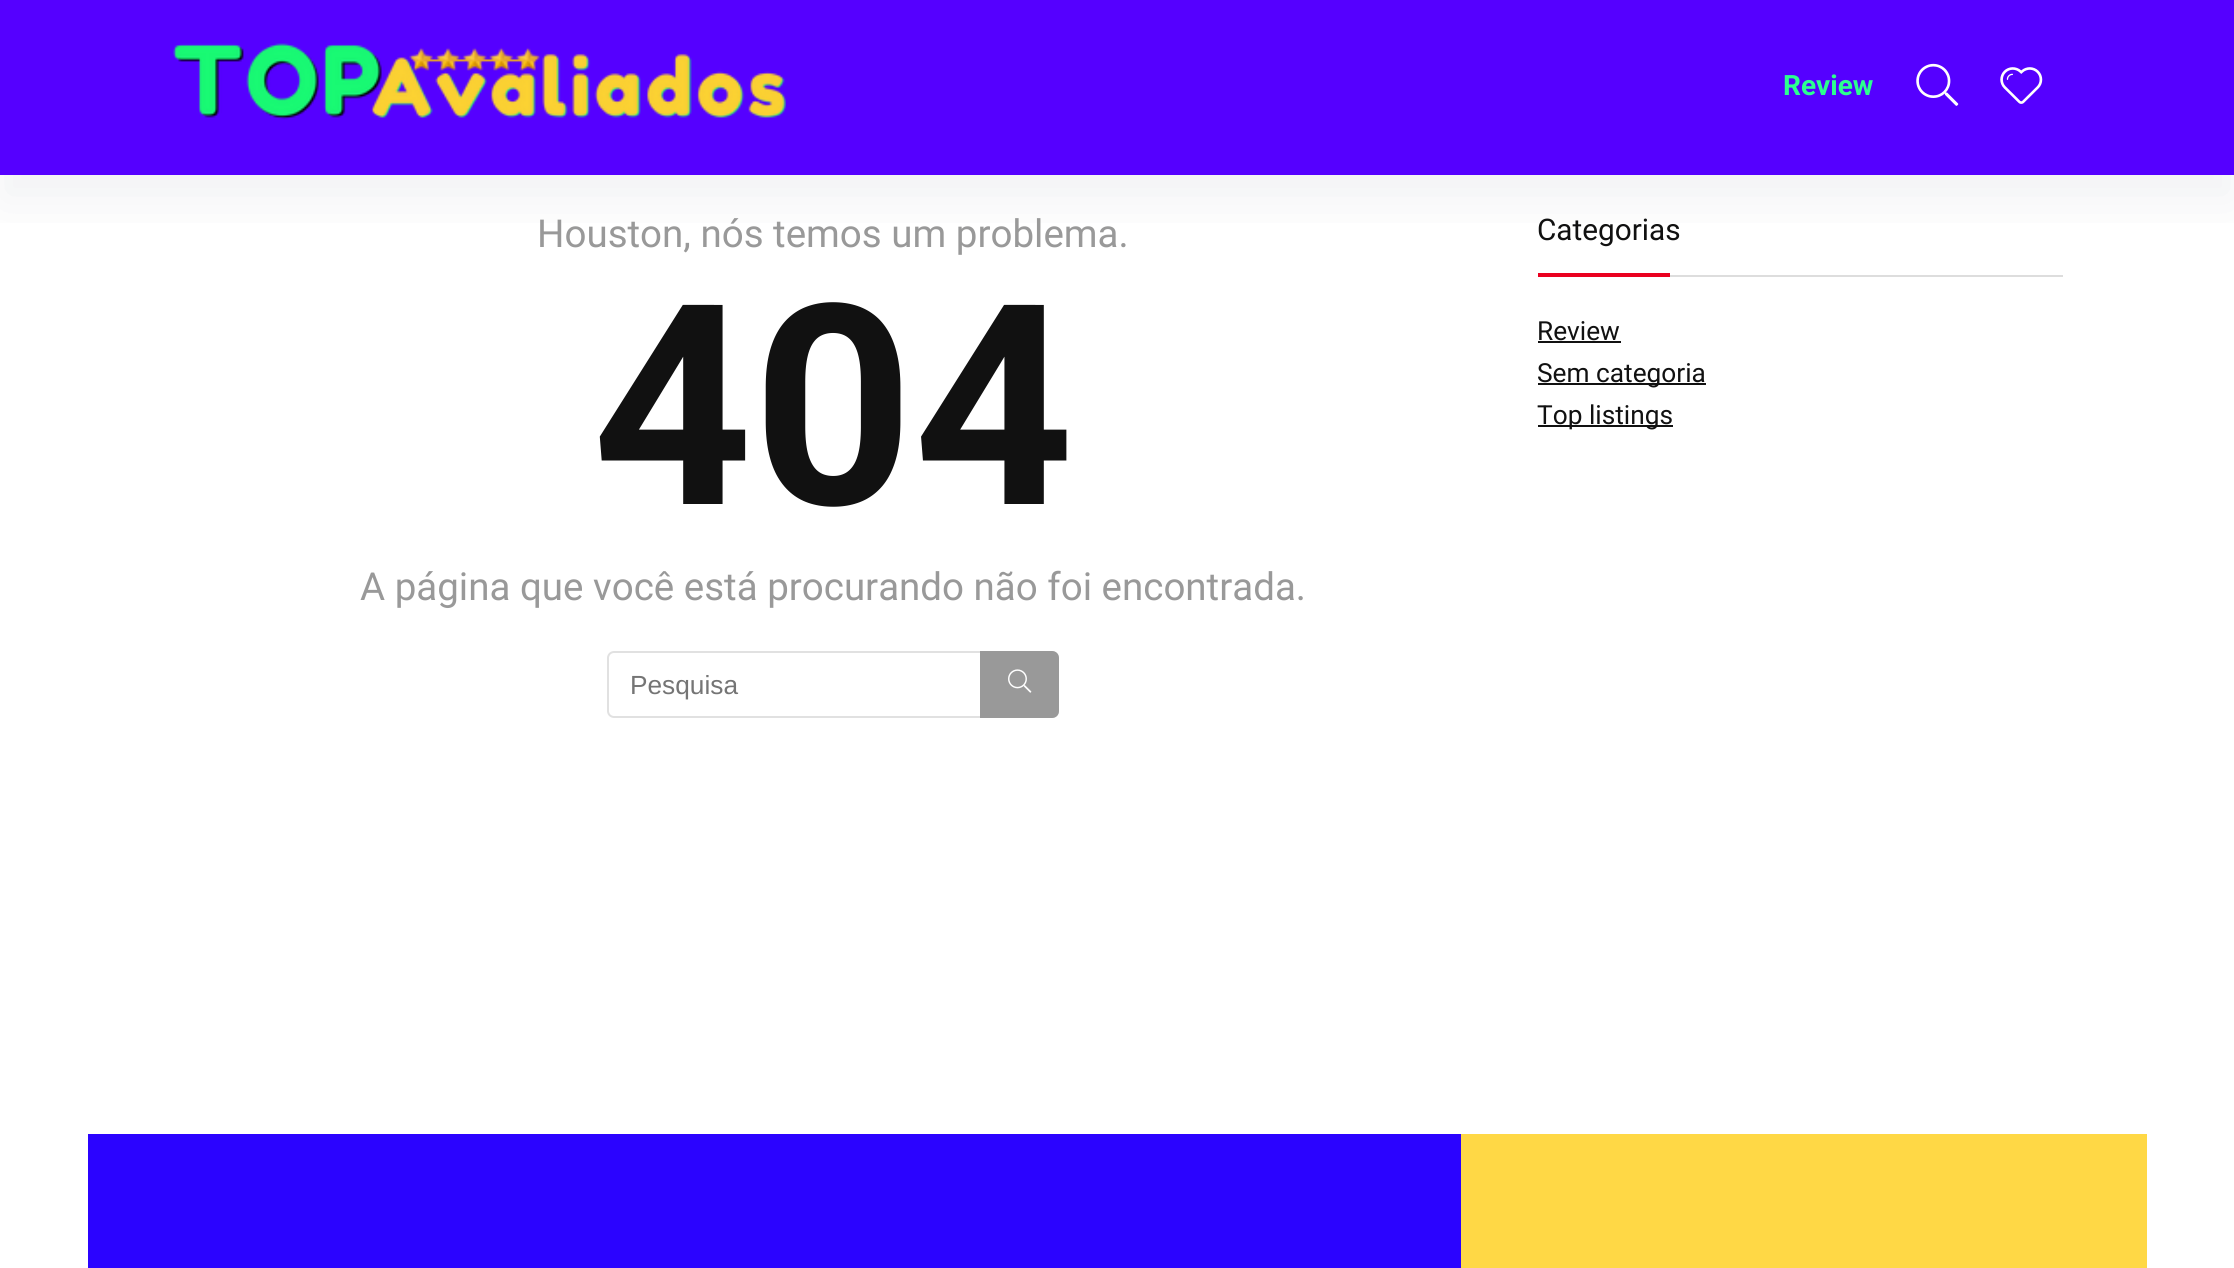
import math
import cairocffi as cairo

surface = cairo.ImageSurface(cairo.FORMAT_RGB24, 2234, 1268)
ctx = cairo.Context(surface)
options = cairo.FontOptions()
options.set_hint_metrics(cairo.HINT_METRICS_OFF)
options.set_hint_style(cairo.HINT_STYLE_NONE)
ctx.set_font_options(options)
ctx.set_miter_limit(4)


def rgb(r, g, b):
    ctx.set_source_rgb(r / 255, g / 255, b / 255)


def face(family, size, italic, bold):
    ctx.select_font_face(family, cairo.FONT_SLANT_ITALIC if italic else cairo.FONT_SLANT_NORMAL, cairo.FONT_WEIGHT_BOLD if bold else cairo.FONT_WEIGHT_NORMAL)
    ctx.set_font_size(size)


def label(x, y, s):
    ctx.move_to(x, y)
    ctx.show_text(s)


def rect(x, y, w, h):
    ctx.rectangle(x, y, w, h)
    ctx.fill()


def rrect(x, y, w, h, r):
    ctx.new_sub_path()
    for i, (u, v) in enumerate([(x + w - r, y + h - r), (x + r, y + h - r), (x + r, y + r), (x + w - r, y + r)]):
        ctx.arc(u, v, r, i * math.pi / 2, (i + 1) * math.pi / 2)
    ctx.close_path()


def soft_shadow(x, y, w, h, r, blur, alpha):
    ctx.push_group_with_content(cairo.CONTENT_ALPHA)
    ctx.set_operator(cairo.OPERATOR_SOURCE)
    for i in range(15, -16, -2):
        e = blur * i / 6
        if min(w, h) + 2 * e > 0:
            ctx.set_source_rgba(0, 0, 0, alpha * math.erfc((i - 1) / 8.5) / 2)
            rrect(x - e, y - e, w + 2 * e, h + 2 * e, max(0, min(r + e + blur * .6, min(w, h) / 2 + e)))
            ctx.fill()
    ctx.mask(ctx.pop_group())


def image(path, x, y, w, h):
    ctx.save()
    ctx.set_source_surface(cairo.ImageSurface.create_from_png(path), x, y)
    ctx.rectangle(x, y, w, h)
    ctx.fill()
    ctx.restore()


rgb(255, 255, 255)
ctx.paint()
rgb(85, 0, 255)
rect(0, 0, 2234, 175)
rgb(221, 221, 221)
rect(1670, 275, 393, 2)
rgb(234, 0, 32)
rect(1538, 273, 132, 4)
ctx.save()
ctx.rectangle(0, 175, 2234, 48)
ctx.clip()
rgb(119, 123, 146)
soft_shadow(0, 26, 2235, 175, 0, 26, 0.1)
ctx.restore()
image('image0.png', 173, 43, 613, 77)
face('Roboto', 28, 0, 1)
rgb(44, 255, 142)
label(1783, 95, 'Review')
image('image1.png', 1916, 63, 43, 43)
image('image2.png', 2000, 67, 43, 37)
face('Roboto', 38.5, 0, 0)
rgb(153, 153, 153)
label(537, 247, 'Houston, nós temos um problema.')
face('Roboto', 280, 0, 1)
rgb(17, 17, 17)
label(592, 504, '404')
face('Roboto', 38.5, 0, 0)
rgb(153, 153, 153)
label(360, 600, 'A página que você está procurando não foi encontrada.')
rrect(608, 652, 450, 65, 6)
rgb(225, 225, 225)
ctx.stroke()
face('Liberation Sans', 26.25, 0, 0)
rgb(117, 117, 117)
label(630, 694, 'Pesquisa')
rgb(153, 153, 153)
ctx.new_path()
ctx.move_to(980, 651)
ctx.line_to(1052, 651)
ctx.curve_to(1056, 651, 1059, 654, 1059, 658)
ctx.line_to(1059, 711)
ctx.curve_to(1059, 715, 1056, 718, 1052, 718)
ctx.line_to(980, 718)
ctx.close_path()
ctx.fill()
image('image3.png', 1008, 669, 24, 24)
face('Roboto', 29.75, 0, 0)
rgb(17, 17, 17)
label(1537, 240, 'Categorias')
face('Roboto', 26.25, 0, 0)
label(1537, 340, 'Review')
rect(1538, 341, 83, 2)
rect(1538, 383, 168, 2)
label(1537, 382, 'Sem categoria')
rect(1538, 425, 135, 2)
label(1537, 424, 'Top listings')
rgb(43, 3, 255)
rect(88, 1134, 1373, 134)
rgb(255, 216, 69)
rect(1461, 1134, 686, 134)
surface.write_to_png('render.png')
